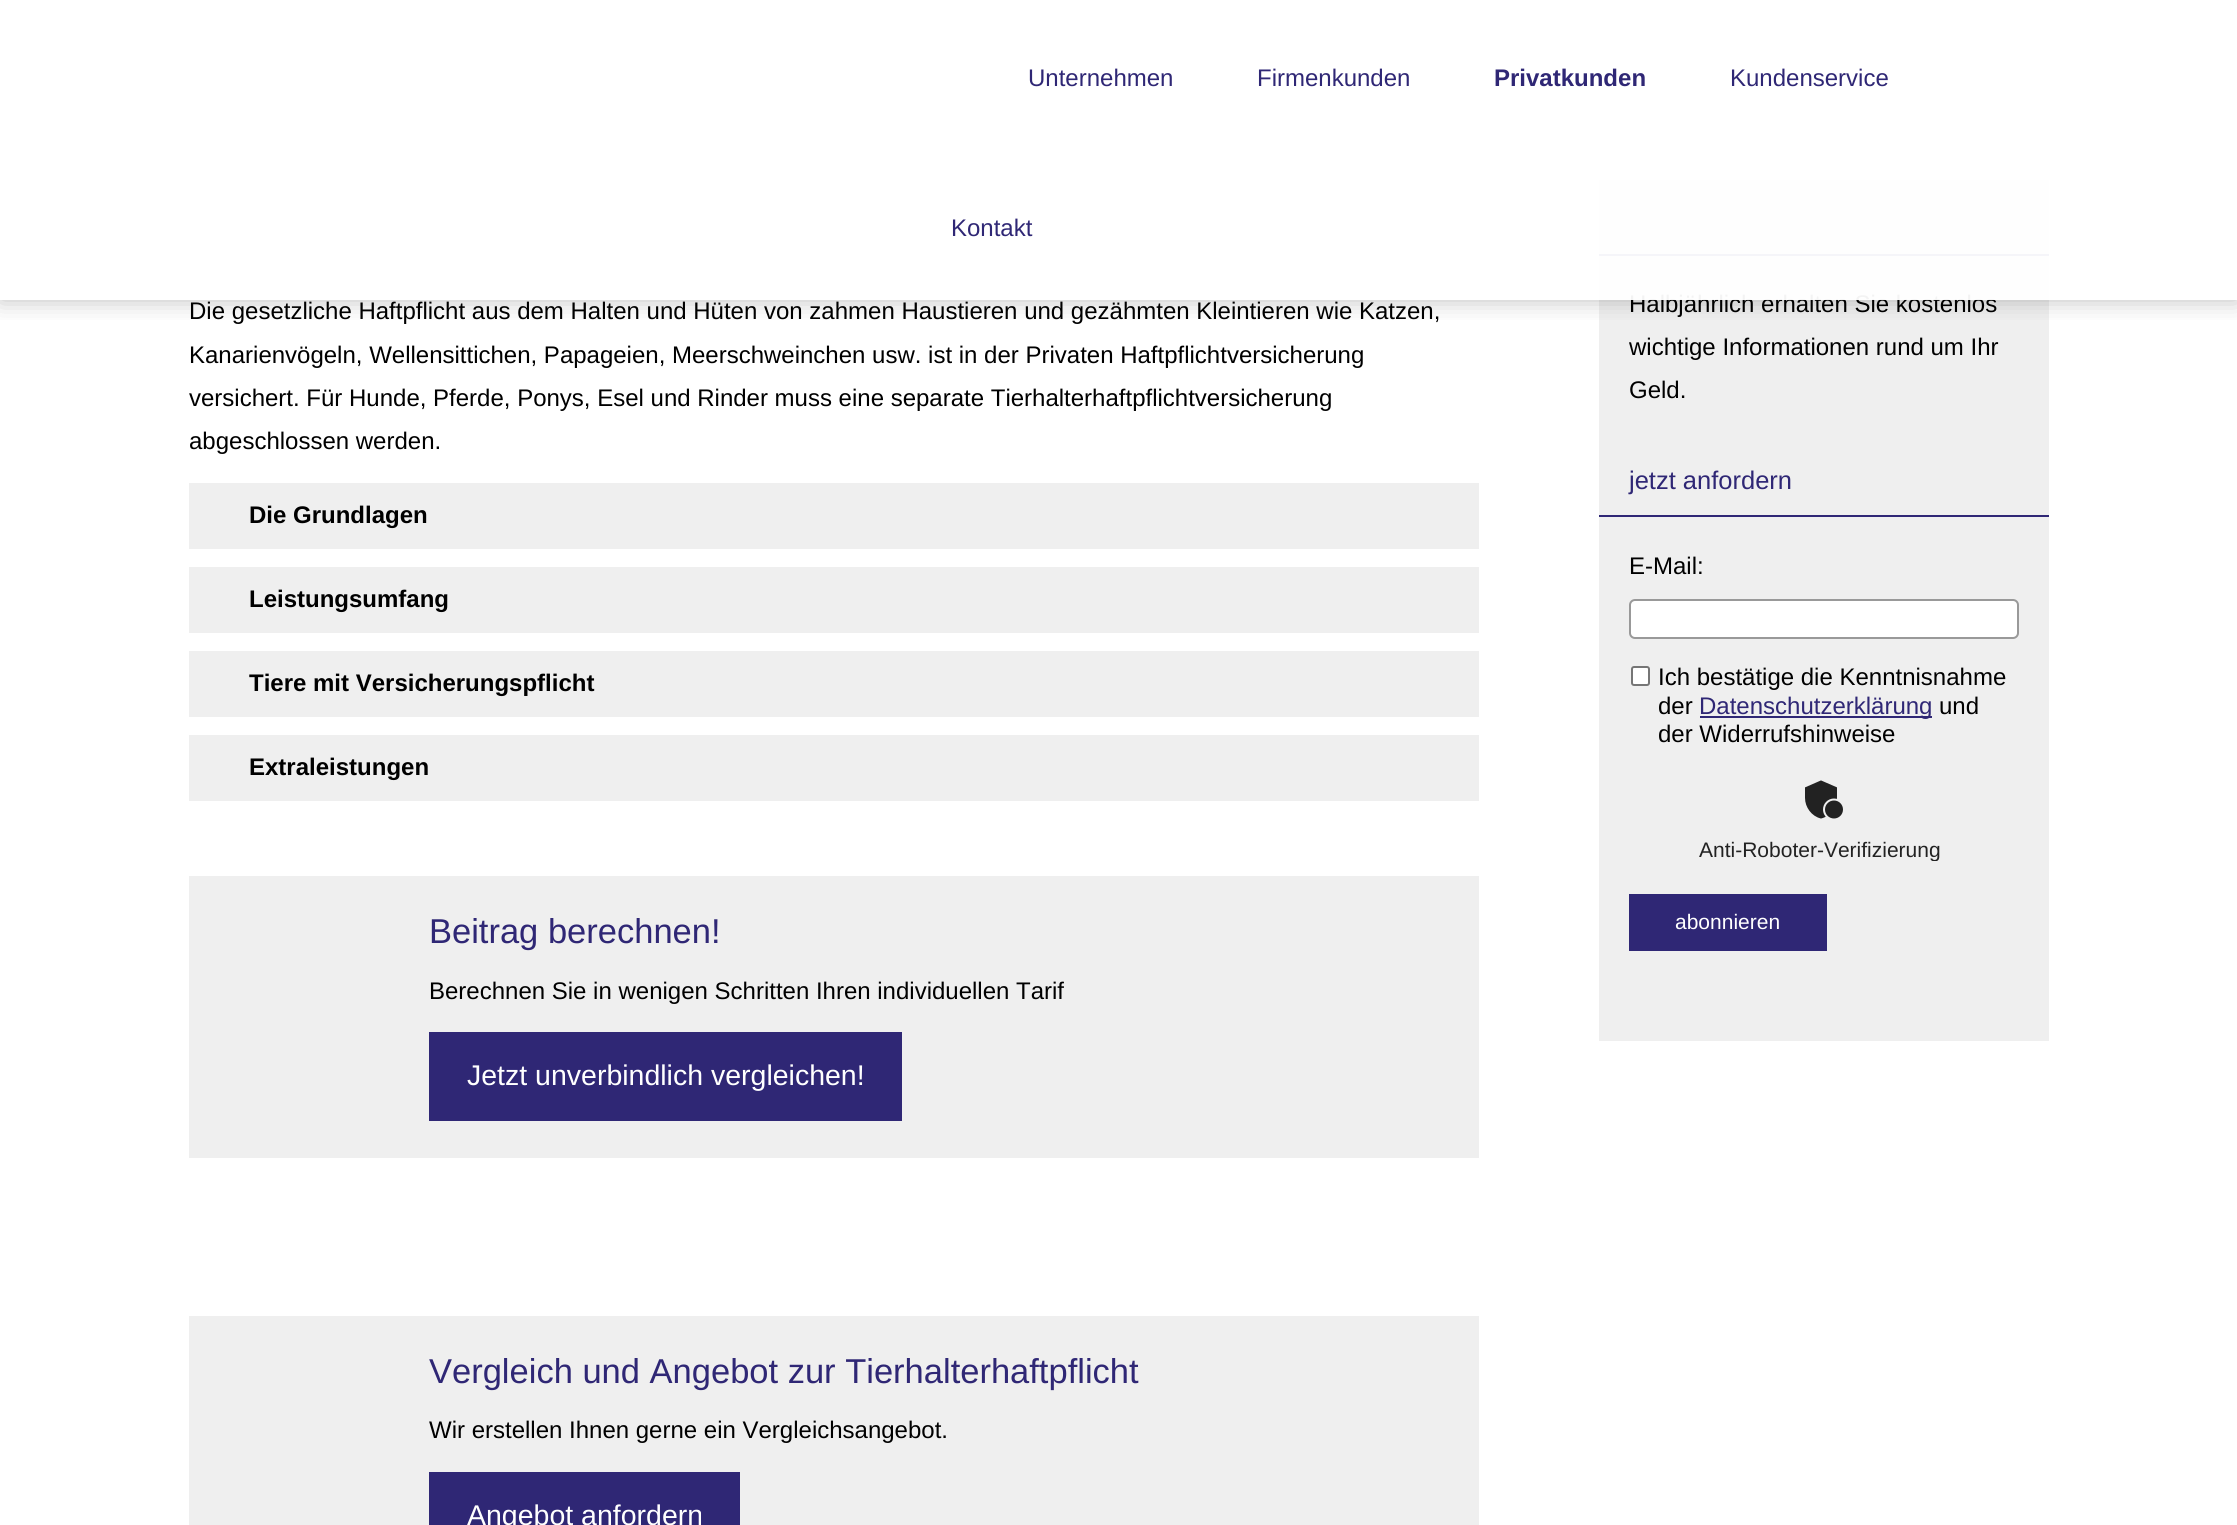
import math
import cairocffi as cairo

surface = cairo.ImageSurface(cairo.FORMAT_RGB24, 2237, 1525)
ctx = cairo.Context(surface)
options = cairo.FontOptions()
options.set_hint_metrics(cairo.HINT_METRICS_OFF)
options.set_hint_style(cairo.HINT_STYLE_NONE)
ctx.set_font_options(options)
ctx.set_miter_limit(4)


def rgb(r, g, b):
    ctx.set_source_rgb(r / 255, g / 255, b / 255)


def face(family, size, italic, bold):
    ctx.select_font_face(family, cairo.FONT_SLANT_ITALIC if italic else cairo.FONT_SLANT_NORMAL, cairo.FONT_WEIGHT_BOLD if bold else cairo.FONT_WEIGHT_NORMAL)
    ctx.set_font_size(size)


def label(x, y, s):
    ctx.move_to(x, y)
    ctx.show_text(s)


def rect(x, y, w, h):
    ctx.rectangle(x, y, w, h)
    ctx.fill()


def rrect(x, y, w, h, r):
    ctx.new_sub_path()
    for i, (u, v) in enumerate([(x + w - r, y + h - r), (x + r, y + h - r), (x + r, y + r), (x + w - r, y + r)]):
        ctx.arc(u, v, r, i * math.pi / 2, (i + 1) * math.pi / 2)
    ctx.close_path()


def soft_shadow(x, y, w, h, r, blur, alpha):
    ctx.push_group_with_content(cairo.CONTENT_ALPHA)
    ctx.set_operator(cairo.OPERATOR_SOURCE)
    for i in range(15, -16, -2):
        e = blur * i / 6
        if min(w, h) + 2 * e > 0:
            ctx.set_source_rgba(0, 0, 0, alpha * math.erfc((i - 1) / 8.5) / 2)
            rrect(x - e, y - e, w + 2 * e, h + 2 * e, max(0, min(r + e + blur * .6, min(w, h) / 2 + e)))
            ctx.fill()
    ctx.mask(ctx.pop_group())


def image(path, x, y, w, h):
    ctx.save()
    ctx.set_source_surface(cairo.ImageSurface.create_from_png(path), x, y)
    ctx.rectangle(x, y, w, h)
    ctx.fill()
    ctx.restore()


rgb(255, 255, 255)
ctx.paint()
rgb(239, 239, 239)
rect(1599, 180, 450, 861)
rgb(47, 39, 117)
rect(1599, 254, 450, 2)
ctx.save()
ctx.rectangle(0, 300, 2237, 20)
ctx.clip()
rgb(90, 90, 90)
soft_shadow(0, 0, 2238, 300, 0, 12, 0.4)
ctx.restore()
face('Liberation Sans', 24, 0, 0)
rgb(0, 0, 0)
label(1629, 312, 'Halbjährlich erhalten Sie kostenlos')
ctx.set_source_rgba(1, 1, 1, 0.95)
rect(1599, 180, 450, 120)
rgb(47, 39, 117)
label(1028, 86, 'Unternehmen')
label(1257, 86, 'Firmenkunden')
face('Liberation Sans', 24, 0, 1)
label(1494, 86, 'Privatkunden')
face('Liberation Sans', 24, 0, 0)
label(1730, 86, 'Kundenservice')
label(951, 236, 'Kontakt')
rgb(0, 0, 0)
label(189, 319, 'Die gesetzliche Haftpflicht aus dem Halten und Hüten von zahmen Haustieren und gezähmten Kleintieren wie Katzen,')
label(189, 363, 'Kanarienvögeln, Wellensittichen, Papageien, Meerschweinchen usw. ist in der Privaten Haftpflichtversicherung')
label(189, 406, 'versichert. Für Hunde, Pferde, Ponys, Esel und Rinder muss eine separate Tierhalterhaftpflichtversicherung')
label(189, 449, 'abgeschlossen werden.')
rgb(239, 239, 239)
rect(189, 483, 1290, 66)
face('Liberation Sans', 24, 0, 1)
rgb(0, 0, 0)
label(249, 523, 'Die Grundlagen')
rgb(239, 239, 239)
rect(189, 567, 1290, 66)
rgb(0, 0, 0)
label(249, 607, 'Leistungsumfang')
rgb(239, 239, 239)
rect(189, 651, 1290, 66)
rgb(0, 0, 0)
label(249, 691, 'Tiere mit Versicherungspflicht')
rgb(239, 239, 239)
rect(189, 735, 1290, 66)
rgb(0, 0, 0)
label(249, 775, 'Extraleistungen')
face('Liberation Sans', 24, 0, 0)
label(1629, 355, 'wichtige Informationen rund um Ihr')
label(1629, 398, 'Geld.')
rgb(47, 39, 117)
rect(1599, 515, 450, 2)
face('Liberation Sans', 25.5, 0, 0)
label(1629, 489, 'jetzt anfordern')
face('Liberation Sans', 24, 0, 0)
rgb(0, 0, 0)
label(1629, 574, 'E-Mail:')
rgb(255, 255, 255)
rrect(1630, 600, 388, 38, 5)
ctx.fill_preserve()
rgb(153, 153, 153)
ctx.stroke()
rgb(255, 255, 255)
rrect(1632, 667, 17, 18, 2)
ctx.fill_preserve()
rgb(118, 118, 118)
ctx.stroke()
rgb(0, 0, 0)
label(1658, 685, 'Ich bestätige die Kenntnisnahme')
label(1658, 714, 'der')
rgb(47, 39, 117)
rect(1700, 716, 232, 2)
label(1699, 714, 'Datenschutzerklärung')
rgb(0, 0, 0)
label(1939, 714, 'und')
label(1658, 742, 'der Widerrufshinweise')
image('image0.png', 1805, 780, 38, 39)
ctx.save()
ctx.rectangle(1698, 837, 243, 24)
ctx.clip()
face('Liberation Sans', 21, 0, 0)
rgb(34, 34, 34)
label(1699, 857, 'Anti-Roboter-Verifizierung')
ctx.restore()
rgb(47, 39, 117)
rect(1629, 894, 198, 57)
face('Liberation Sans', 21, 0, 0)
rgb(255, 255, 255)
label(1675, 929, 'abonnieren')
rgb(239, 239, 239)
rect(189, 876, 1290, 282)
face('Liberation Sans', 34.5, 0, 0)
rgb(47, 39, 117)
label(429, 943, 'Beitrag berechnen!')
face('Liberation Sans', 24, 0, 0)
rgb(0, 0, 0)
label(429, 999, 'Berechnen Sie in wenigen Schritten Ihren individuellen Tarif')
rgb(47, 39, 117)
rect(429, 1032, 473, 89)
face('Liberation Sans', 28.5, 0, 0)
rgb(255, 255, 255)
label(467, 1085, 'Jetzt unverbindlich vergleichen!')
rgb(239, 239, 239)
rect(189, 1316, 1290, 209)
face('Liberation Sans', 34.5, 0, 0)
rgb(47, 39, 117)
label(429, 1383, 'Vergleich und Angebot zur Tierhalterhaftpflicht')
face('Liberation Sans', 24, 0, 0)
rgb(0, 0, 0)
label(429, 1438, 'Wir erstellen Ihnen gerne ein Vergleichsangebot.')
rgb(47, 39, 117)
rect(429, 1472, 311, 53)
face('Liberation Sans', 28.5, 0, 0)
rgb(255, 255, 255)
label(467, 1525, 'Angebot anfordern')
surface.write_to_png('render.png')
